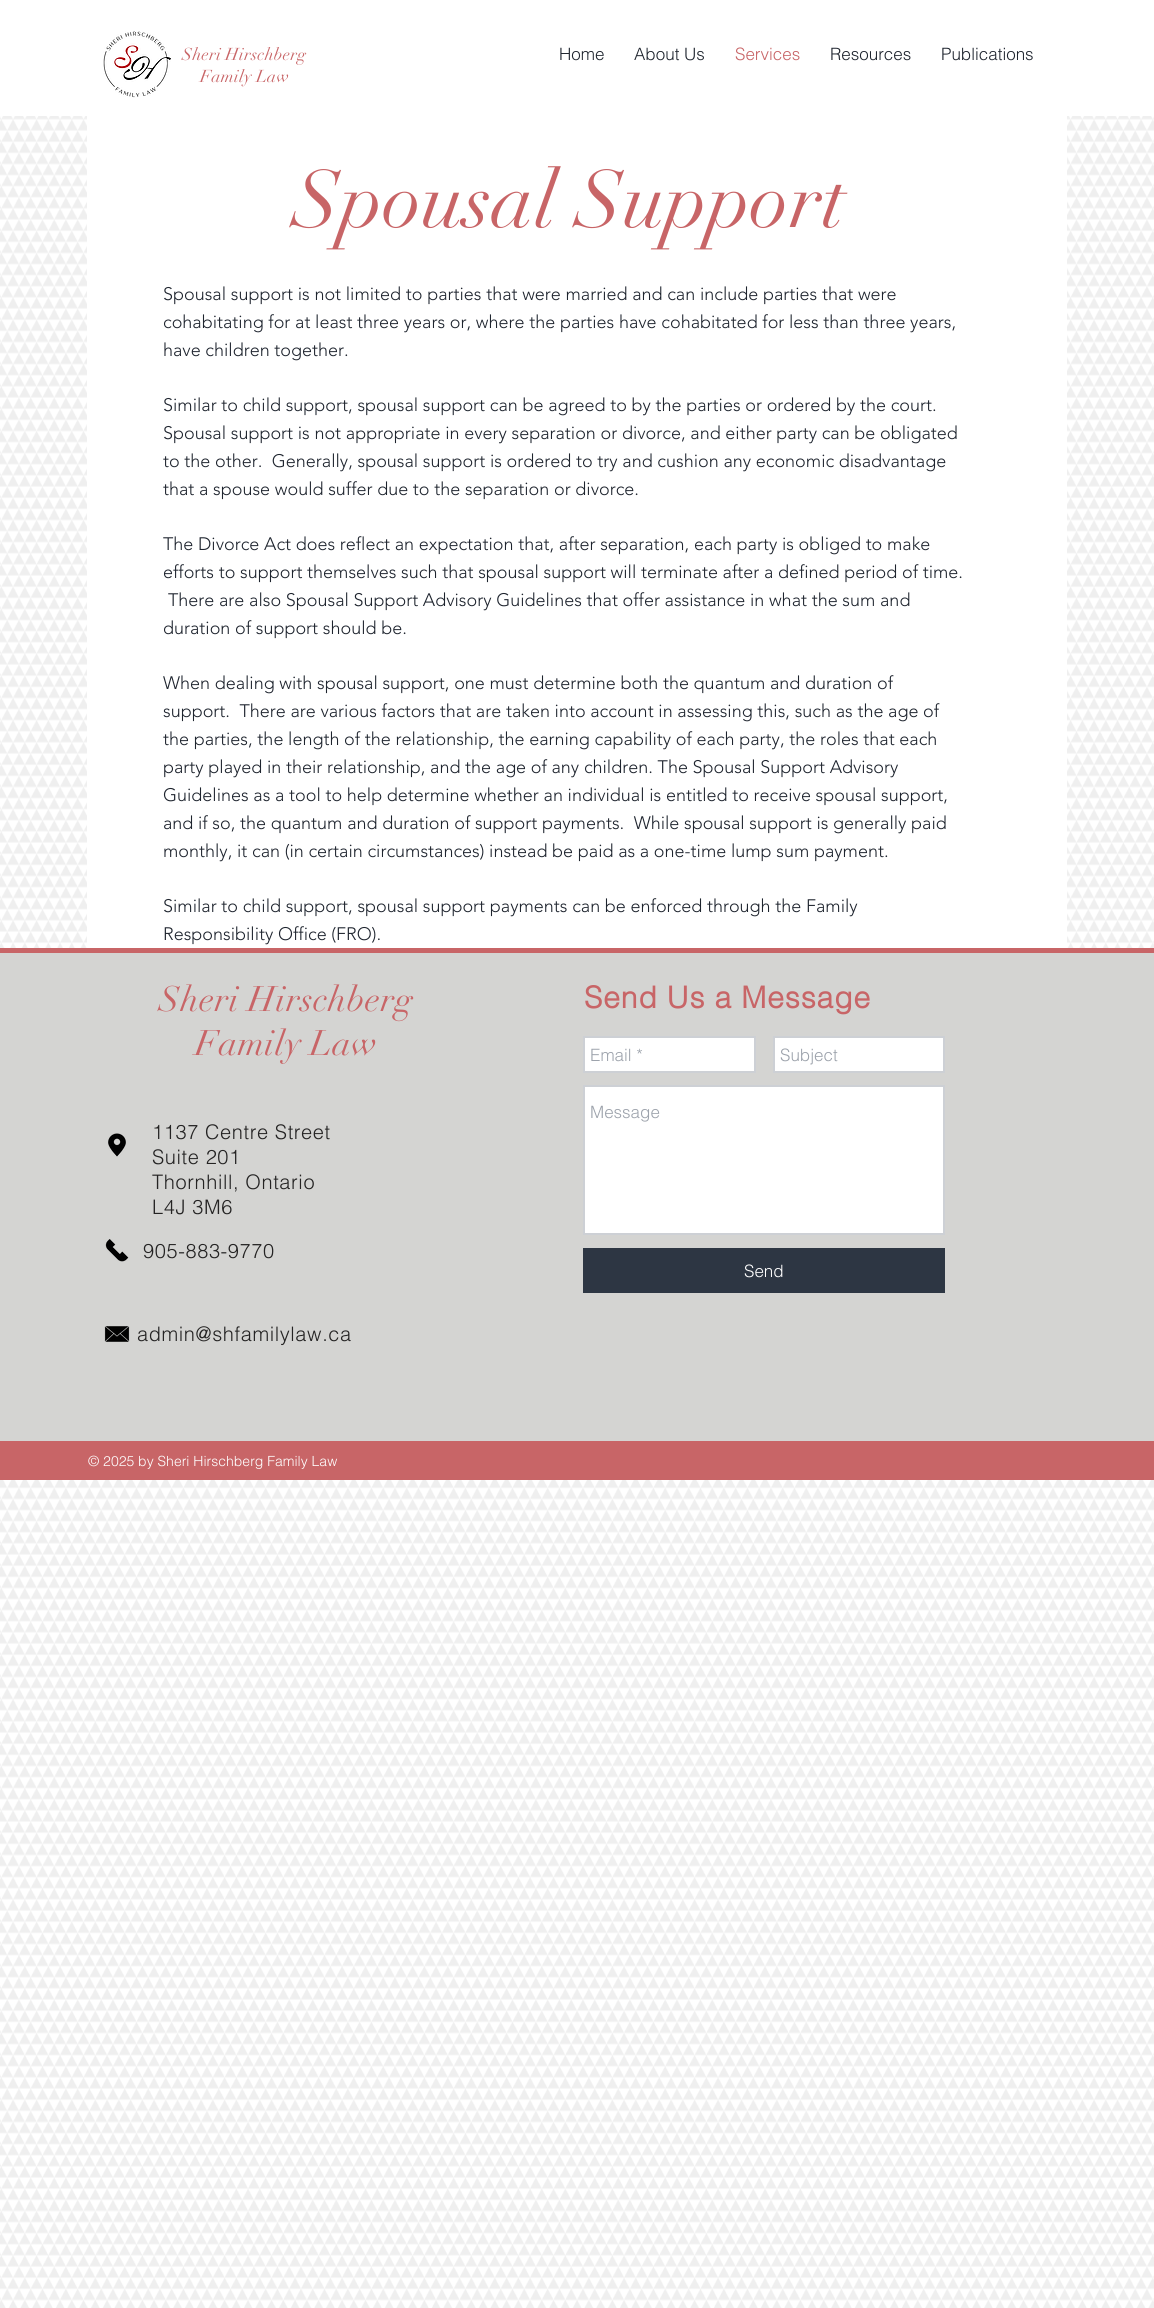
import math
import cairocffi as cairo

surface = cairo.ImageSurface(cairo.FORMAT_RGB24, 1154, 2308)
ctx = cairo.Context(surface)
options = cairo.FontOptions()
options.set_hint_metrics(cairo.HINT_METRICS_OFF)
options.set_hint_style(cairo.HINT_STYLE_NONE)
ctx.set_font_options(options)
ctx.set_miter_limit(4)


def rgb(r, g, b):
    ctx.set_source_rgb(r / 255, g / 255, b / 255)


def face(family, size, italic, bold):
    ctx.select_font_face(family, cairo.FONT_SLANT_ITALIC if italic else cairo.FONT_SLANT_NORMAL, cairo.FONT_WEIGHT_BOLD if bold else cairo.FONT_WEIGHT_NORMAL)
    ctx.set_font_size(size)


def label(x, y, s):
    ctx.move_to(x, y)
    ctx.show_text(s)


def tracked(x, y, s, letter, word):
    ctx.move_to(x, y)
    for ch in s:
        ctx.show_text(ch)
        ctx.rel_move_to(letter + word * (ch == ' '), 0)


def rect(x, y, w, h):
    ctx.rectangle(x, y, w, h)
    ctx.fill()


def image(path, x, y, w, h):
    ctx.save()
    ctx.set_source_surface(cairo.ImageSurface.create_from_png(path), x, y)
    ctx.rectangle(x, y, w, h)
    ctx.fill()
    ctx.restore()


rgb(255, 255, 255)
ctx.paint()
image('image0.png', 103, 31, 68, 67)
face('didot', 17, 0, 0)
rgb(200, 101, 103)
tracked(182, 60, 'Sheri Hirschberg', 0.2, 0)
tracked(200, 82, 'Family Law', 0.2, 0)
face('helvetica Light', 17, 0, 0)
rgb(30, 36, 46)
label(559, 60, 'Home')
label(634, 60, 'About Us')
rgb(200, 101, 103)
label(735, 60, 'Services')
rgb(30, 36, 46)
label(830, 60, 'Resources')
label(941, 60, 'Publications')
image('image4.png', 0, 116, 1154, 2192)
rgb(255, 255, 255)
rect(87, 116, 980, 832)
face('didot', 80, 0, 0)
rgb(200, 101, 103)
label(293, 227, 'Spousal Support')
face('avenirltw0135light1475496 Light', 18, 0, 0)
rgb(30, 36, 46)
label(163, 300, 'Spousal support is not limited to parties that were married and can include parties that were')
label(163, 328, 'cohabitating for at least three years or, where the parties have cohabitated for less than three years,')
label(163, 356, 'have children together.')
label(163, 411, 'Similar to child support, spousal support can be agreed to by the parties or ordered by the court.')
label(163, 439, 'Spousal support is not appropriate in every separation or divorce, and either party can be obligated')
label(163, 467, 'to the other.  Generally, spousal support is ordered to try and cushion any economic disadvantage')
label(163, 495, 'that a spouse would suffer due to the separation or divorce.')
label(163, 550, 'The Divorce Act does reflect an expectation that, after separation, each party is obliged to make')
label(163, 578, 'efforts to support themselves such that spousal support will terminate after a defined period of time.')
label(168, 606, 'There are also Spousal Support Advisory Guidelines that offer assistance in what the sum and')
label(163, 634, 'duration of support should be.')
label(163, 689, 'When dealing with spousal support, one must determine both the quantum and duration of')
label(163, 717, 'support.  There are various factors that are taken into account in assessing this, such as the age of')
label(163, 745, 'the parties, the length of the relationship, the earning capability of each party, the roles that each')
label(163, 773, 'party played in their relationship, and the age of any children. The Spousal Support Advisory')
label(163, 801, 'Guidelines as a tool to help determine whether an individual is entitled to receive spousal support,')
label(163, 829, 'and if so, the quantum and duration of support payments.  While spousal support is generally paid')
label(163, 857, 'monthly, it can (in certain circumstances) instead be paid as a one-time lump sum payment.')
label(163, 912, 'Similar to child support, spousal support payments can be enforced through the Family')
label(163, 940, 'Responsibility Office (FRO).')
rgb(200, 101, 103)
rect(0, 948, 1154, 5)
rgb(212, 212, 210)
rect(0, 953, 1154, 488)
face('didot', 35, 0, 0)
rgb(200, 101, 103)
tracked(159, 1011, 'Sheri Hirschberg', 0.3, 0)
tracked(195, 1055, 'Family Law', 0.3, 0)
face('helvetica', 30, 0, 1)
tracked(584, 1008, 'Send Us a Message', 0.9, 0)
image('image1.png', 108, 1133, 18, 24)
face('helvetica Light', 20, 0, 0)
rgb(36, 35, 35)
tracked(152, 1139, '1137 Centre Street', 0.6, 0)
tracked(152, 1164, 'Suite 201', 0.6, 0)
tracked(152, 1189, 'Thornhill, Ontario', 0.6, 0)
tracked(152, 1214, 'L4J 3M6', 0.6, 0)
rgb(255, 255, 255)
ctx.rectangle(584, 1037, 171, 35)
ctx.fill_preserve()
rgb(205, 208, 213)
ctx.stroke()
face('helvetica Light', 17, 0, 0)
rgb(156, 162, 171)
label(590, 1061, 'Email *')
rgb(255, 255, 255)
ctx.rectangle(774, 1037, 170, 35)
ctx.fill_preserve()
rgb(205, 208, 213)
ctx.stroke()
rgb(156, 162, 171)
label(780, 1061, 'Subject')
rgb(255, 255, 255)
ctx.rectangle(584, 1086, 360, 148)
ctx.fill_preserve()
rgb(205, 208, 213)
ctx.stroke()
rgb(156, 162, 171)
label(590, 1118, 'Message')
rgb(45, 54, 67)
rect(583, 1248, 362, 45)
rgb(255, 255, 255)
label(744, 1277, 'Send')
image('image2.png', 105, 1239, 24, 23)
face('helvetica Light', 20, 0, 0)
rgb(36, 35, 35)
tracked(143, 1258, '905-883-9770', 0.6, 0)
image('image3.png', 104, 1326, 26, 16)
tracked(137, 1341, 'admin@shfamilylaw.ca', 0.6, 0)
rgb(200, 101, 103)
rect(0, 1441, 1154, 39)
face('helvetica Light', 14, 0, 0)
rgb(255, 255, 255)
label(88, 1466, '© 2025 by Sheri Hirschberg Family Law')
surface.write_to_png('render.png')
